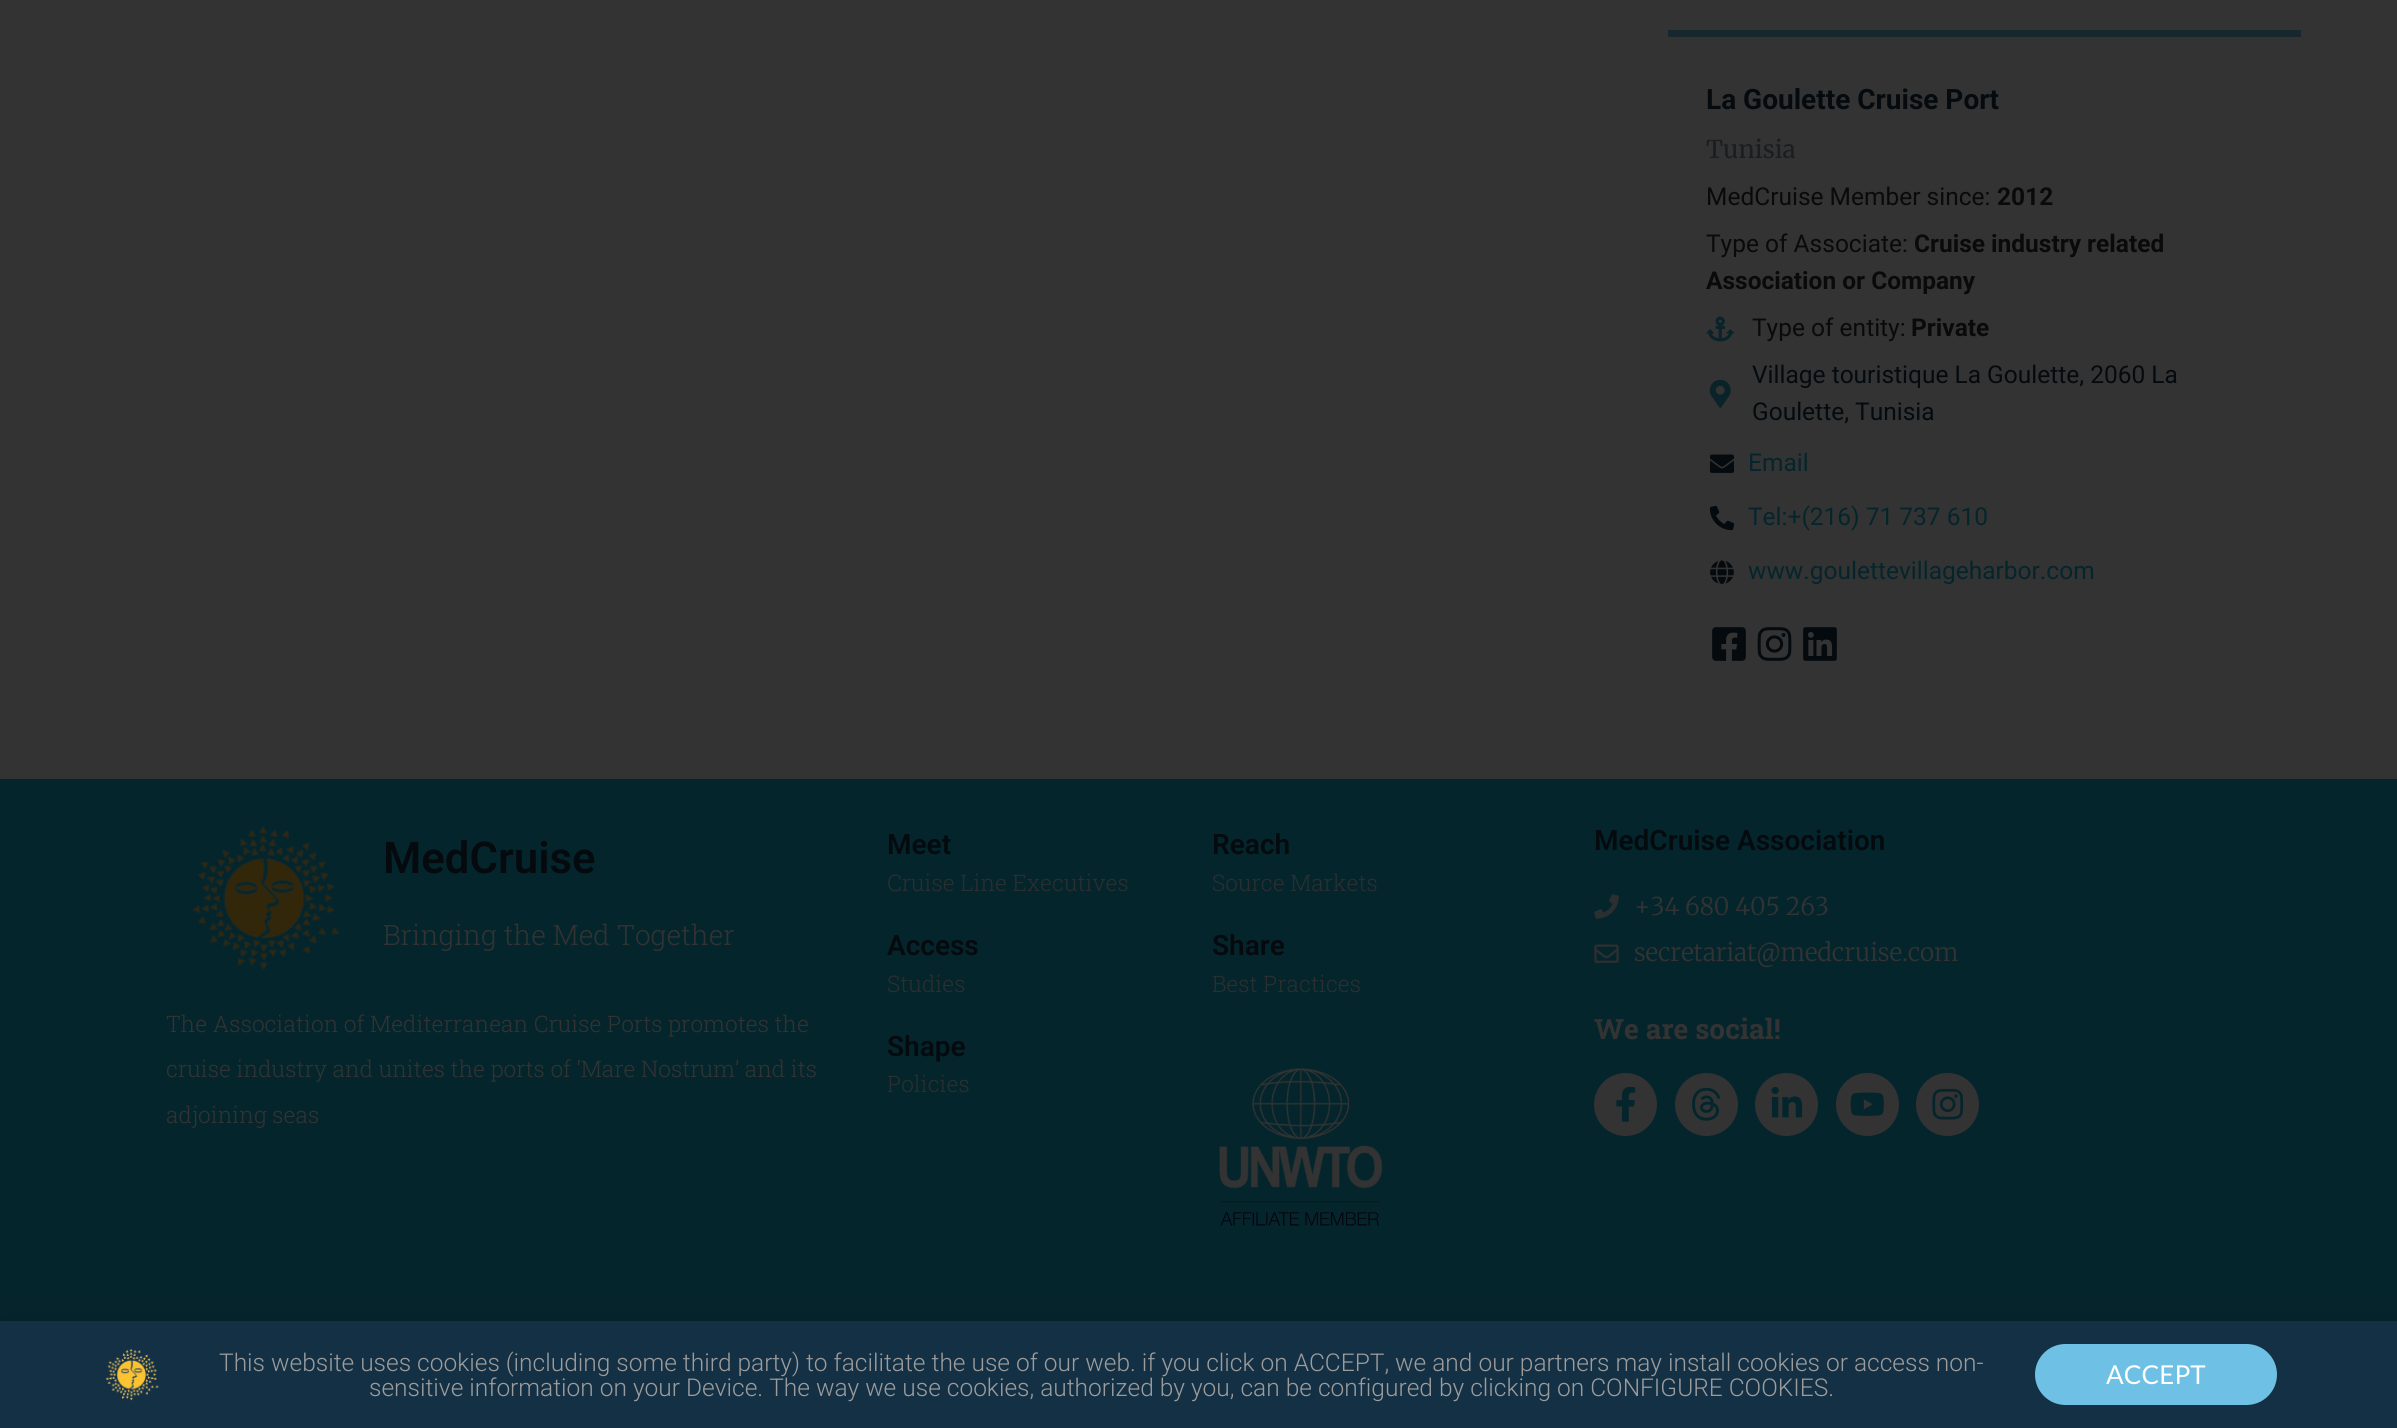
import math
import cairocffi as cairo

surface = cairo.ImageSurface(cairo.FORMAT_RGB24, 2397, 1428)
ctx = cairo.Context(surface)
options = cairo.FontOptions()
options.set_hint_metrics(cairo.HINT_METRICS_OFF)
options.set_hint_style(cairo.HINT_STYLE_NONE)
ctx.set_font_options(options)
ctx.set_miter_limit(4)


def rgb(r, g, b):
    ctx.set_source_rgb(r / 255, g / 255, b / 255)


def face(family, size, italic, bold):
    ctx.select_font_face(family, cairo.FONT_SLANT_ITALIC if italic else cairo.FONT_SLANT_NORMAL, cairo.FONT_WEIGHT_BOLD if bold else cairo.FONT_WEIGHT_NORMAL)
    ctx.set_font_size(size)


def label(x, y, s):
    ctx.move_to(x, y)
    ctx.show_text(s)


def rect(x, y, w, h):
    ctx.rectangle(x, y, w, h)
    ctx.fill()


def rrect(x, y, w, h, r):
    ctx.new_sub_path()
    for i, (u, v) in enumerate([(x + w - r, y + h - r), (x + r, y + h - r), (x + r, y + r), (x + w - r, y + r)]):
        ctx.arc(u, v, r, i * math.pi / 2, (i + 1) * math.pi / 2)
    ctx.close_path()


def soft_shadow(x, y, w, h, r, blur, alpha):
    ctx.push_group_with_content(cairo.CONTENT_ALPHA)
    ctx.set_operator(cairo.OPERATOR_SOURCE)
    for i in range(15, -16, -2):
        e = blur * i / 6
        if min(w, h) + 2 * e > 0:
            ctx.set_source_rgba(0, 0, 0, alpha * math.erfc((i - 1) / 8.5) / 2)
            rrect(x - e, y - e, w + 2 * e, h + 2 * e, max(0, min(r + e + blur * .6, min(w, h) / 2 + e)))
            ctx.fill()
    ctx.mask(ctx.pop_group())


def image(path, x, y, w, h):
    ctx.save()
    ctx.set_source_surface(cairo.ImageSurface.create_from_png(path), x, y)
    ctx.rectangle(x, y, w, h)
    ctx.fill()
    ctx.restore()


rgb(51, 51, 51)
ctx.paint()
rgb(22, 39, 46)
rect(1668, 30, 633, 7)
face('Roboto', 28, 0, 1)
rgb(4, 10, 14)
label(1706, 109, 'La Goulette Cruise Port')
face('Merriweather', 24.5, 0, 0)
rgb(26, 30, 32)
label(1706, 158, 'Tunisia')
face('Roboto', 24.5, 0, 0)
rgb(10, 10, 10)
label(1706, 205, 'MedCruise Member since:')
face('Roboto', 24.5, 0, 1)
label(1997, 205, '2012')
face('Roboto', 24.5, 0, 0)
label(1706, 252, 'Type of Associate:')
face('Roboto', 24.5, 0, 1)
label(1914, 252, 'Cruise industry related')
label(1706, 289, 'Association or Company')
image('image0.png', 1706, 316, 28, 26)
face('Roboto', 24.5, 0, 0)
label(1752, 336, 'Type of entity:')
face('Roboto', 24.5, 0, 1)
label(1911, 336, 'Private')
image('image1.png', 1709, 380, 22, 28)
face('Roboto', 24.5, 0, 0)
rgb(4, 10, 14)
label(1752, 383, 'Village touristique La Goulette, 2060 La')
label(1752, 420, 'Goulette, Tunisia')
image('image2.png', 1710, 454, 24, 19)
rgb(5, 37, 44)
label(1748, 471, 'Email')
image('image3.png', 1710, 506, 24, 24)
label(1748, 525, 'Tel:+(216) 71 737 610')
image('image4.png', 1710, 560, 24, 25)
label(1748, 579, 'www.goulettevillageharbor.com')
image('image5.png', 1712, 627, 34, 34)
image('image6.png', 1757, 627, 35, 34)
image('image7.png', 1803, 627, 34, 34)
rect(0, 779, 2397, 542)
image('image8.png', 192, 826, 148, 144)
face('Roboto SemiBold', 43.75, 0, 0)
rgb(4, 10, 14)
label(383, 873, 'MedCruise')
face('Roboto Slab Light', 28, 0, 0)
rgb(51, 51, 51)
label(383, 945, 'Bringing the Med Together')
face('Roboto Slab Light', 22.75, 0, 0)
label(166, 1032, 'The Association of Mediterranean Cruise Ports promotes the')
label(166, 1077, 'cruise industry and unites the ports of ‘Mare Nostrum’ and its')
label(166, 1123, 'adjoining seas')
face('Roboto SemiBold', 28, 0, 0)
rgb(4, 10, 14)
label(887, 854, 'Meet')
face('Roboto Slab Light', 22.75, 0, 0)
rgb(43, 47, 48)
label(887, 891, 'Cruise Line Executives')
face('Roboto SemiBold', 28, 0, 0)
rgb(4, 10, 14)
label(887, 955, 'Access')
face('Roboto Slab Light', 22.75, 0, 0)
rgb(43, 47, 48)
label(887, 992, 'Studies')
face('Roboto SemiBold', 28, 0, 0)
rgb(4, 10, 14)
label(887, 1056, 'Shape')
face('Roboto Slab Light', 22.75, 0, 0)
rgb(43, 47, 48)
label(887, 1092, 'Policies')
face('Roboto SemiBold', 28, 0, 0)
rgb(4, 10, 14)
label(1212, 854, 'Reach')
face('Roboto Slab Light', 22.75, 0, 0)
rgb(43, 47, 48)
label(1212, 891, 'Source Markets')
face('Roboto SemiBold', 28, 0, 0)
rgb(4, 10, 14)
label(1212, 955, 'Share')
face('Roboto Slab Light', 22.75, 0, 0)
rgb(43, 47, 48)
label(1212, 992, 'Best Practices')
image('image9.png', 1219, 1068, 164, 158)
face('Roboto SemiBold', 28, 0, 0)
rgb(4, 10, 14)
label(1594, 850, 'MedCruise Association')
image('image10.png', 1594, 894, 25, 25)
face('Merriweather Light', 24.5, 0, 0)
rgb(51, 51, 51)
label(1634, 915, '+34 680 405 263')
image('image11.png', 1594, 944, 25, 19)
label(1634, 961, 'secretariat@medcruise.com')
face('Roboto Slab', 28, 0, 1)
label(1594, 1039, 'We are social!')
ctx.new_path()
ctx.arc(1625.5, 1104.5, 31.5, 0, 2 * math.pi)
ctx.fill()
image('image12.png', 1616, 1087, 20, 35)
ctx.arc(1706.5, 1104.5, 31.5, 0, 2 * math.pi)
ctx.fill()
image('image13.png', 1692, 1087, 29, 34)
ctx.arc(1786.5, 1104.5, 31.5, 0, 2 * math.pi)
ctx.fill()
image('image14.png', 1771, 1087, 32, 31)
ctx.arc(1867.5, 1104.5, 31.5, 0, 2 * math.pi)
ctx.fill()
image('image15.png', 1850, 1092, 34, 24)
ctx.arc(1947.5, 1104.5, 31.5, 0, 2 * math.pi)
ctx.fill()
image('image16.png', 1932, 1088, 32, 32)
rgb(0, 0, 0)
soft_shadow(-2, 1330, 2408, 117, 0, 20, 0.2)
rgb(20, 48, 68)
rect(0, 1321, 2397, 107)
image('image17.png', 105, 1348, 54, 53)
face('Roboto Light', 24.5, 0, 0)
rgb(156, 156, 156)
label(219, 1371, 'This website uses cookies (including some third party) to facilitate the use of our web. if you click on ACCEPT, we and our partners may install cookies or access non-')
label(369, 1396, 'sensitive information on your Device. The way we use cookies, authorized by you, can be configured by clicking on CONFIGURE COOKIES.')
rgb(110, 193, 228)
rrect(2035, 1344, 242, 61, 30.5)
ctx.fill()
face('Lato', 26, 0, 0)
rgb(255, 255, 255)
label(2106, 1384, 'ACCEPT')
surface.write_to_png('render.png')
